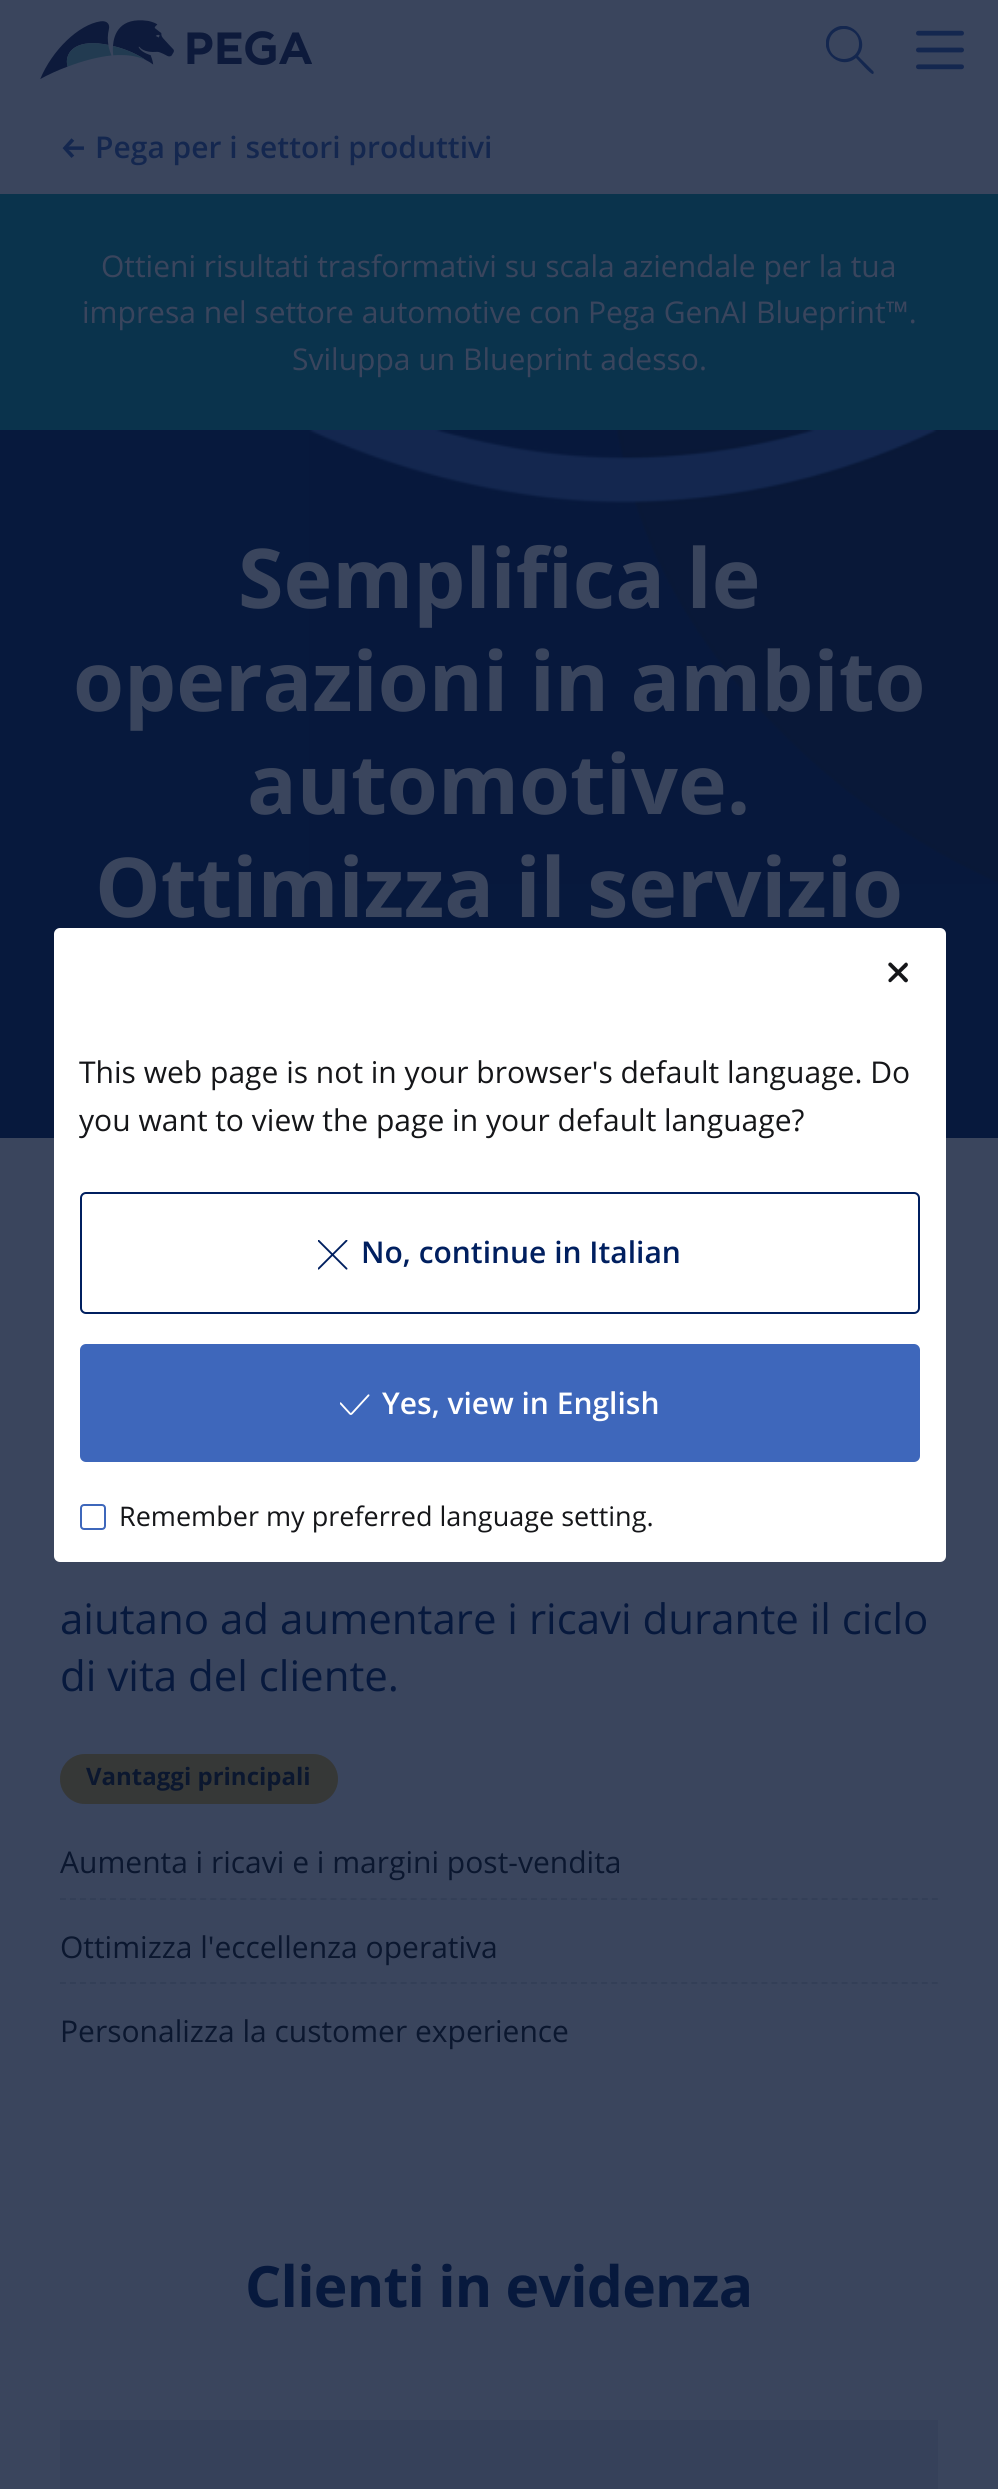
import math
import cairocffi as cairo

surface = cairo.ImageSurface(cairo.FORMAT_RGB24, 998, 2489)
ctx = cairo.Context(surface)
options = cairo.FontOptions()
options.set_hint_metrics(cairo.HINT_METRICS_OFF)
options.set_hint_style(cairo.HINT_STYLE_NONE)
ctx.set_font_options(options)
ctx.set_miter_limit(4)


def rgb(r, g, b):
    ctx.set_source_rgb(r / 255, g / 255, b / 255)


def face(family, size, italic, bold):
    ctx.select_font_face(family, cairo.FONT_SLANT_ITALIC if italic else cairo.FONT_SLANT_NORMAL, cairo.FONT_WEIGHT_BOLD if bold else cairo.FONT_WEIGHT_NORMAL)
    ctx.set_font_size(size)


def label(x, y, s):
    ctx.move_to(x, y)
    ctx.show_text(s)


def tracked(x, y, s, letter, word):
    ctx.move_to(x, y)
    for ch in s:
        ctx.show_text(ch)
        ctx.rel_move_to(letter + word * (ch == ' '), 0)


def rect(x, y, w, h):
    ctx.rectangle(x, y, w, h)
    ctx.fill()


def rrect(x, y, w, h, r):
    ctx.new_sub_path()
    for i, (u, v) in enumerate([(x + w - r, y + h - r), (x + r, y + h - r), (x + r, y + r), (x + w - r, y + r)]):
        ctx.arc(u, v, r, i * math.pi / 2, (i + 1) * math.pi / 2)
    ctx.close_path()


def image(path, x, y, w, h):
    ctx.save()
    ctx.set_source_surface(cairo.ImageSurface.create_from_png(path), x, y)
    ctx.rectangle(x, y, w, h)
    ctx.fill()
    ctx.restore()


rgb(58, 69, 93)
ctx.paint()
image('image0.png', 40, 20, 272, 59)
ctx.save()
ctx.rectangle(826, 26, 48, 48)
ctx.clip()
rgb(20, 39, 79)
ctx.new_path()
ctx.move_to(873, 71)
ctx.line_to(858, 56)
ctx.curve_to(872, 39, 848, 15, 831, 31)
ctx.curve_to(815, 48, 839, 72, 856, 58)
ctx.curve_to(858, 60, 871, 75, 873, 74)
ctx.curve_to(874, 73, 874, 72, 873, 71)
ctx.close_path()
ctx.move_to(829, 44)
ctx.curve_to(829, 24, 859, 24, 859, 44)
ctx.curve_to(859, 64, 829, 64, 829, 44)
ctx.close_path()
ctx.fill()
ctx.restore()
image('image1.png', 916, 30, 48, 40)
face('Fira Sans SemiBold', 30, 0, 0)
rgb(20, 39, 79)
label(60, 158, '←')
face('Open Sans SemiBold', 30, 0, 0)
label(95, 158, 'Pega per i settori produttivi')
rgb(10, 51, 76)
rect(0, 194, 998, 236)
face('Open Sans', 30, 0, 0)
rgb(58, 69, 93)
label(101, 277, 'Ottieni risultati trasformativi su scala aziendale per la tua')
label(82, 323, 'impresa nel settore automotive con Pega GenAI Blueprint™.')
label(292, 370, 'Sviluppa un Blueprint adesso.')
rgb(7, 25, 61)
rect(0, 430, 998, 708)
image('image2.png', 309, 430, 689, 454)
face('Open Sans', 82.5, 0, 1)
rgb(58, 69, 93)
label(238, 608, 'Semplifica le')
label(73, 711, 'operazioni in ambito')
label(247, 814, 'automotive.')
label(95, 917, 'Ottimizza il servizio')
face('Open Sans', 42, 0, 0)
rgb(7, 25, 61)
label(60, 1634, 'aiutano ad aumentare i ricavi durante il ciclo')
label(60, 1691, 'di vita del cliente.')
rgb(58, 58, 52)
rrect(60, 1754, 278, 50, 25)
ctx.fill()
ctx.set_source_rgba(0.137, 0.184, 0.282, 0.16)
rrect(60, 1754, 278, 50, 25)
ctx.fill()
face('Open Sans', 24, 0, 1)
rgb(11, 23, 47)
label(86, 1785, 'Vantaggi principali')
ctx.new_path()
ctx.move_to(60, 1899)
ctx.line_to(938, 1899)
rgb(51, 63, 87)
ctx.set_dash([6, 4.02])
ctx.stroke()
face('Open Sans', 30, 0, 0)
rgb(11, 23, 47)
label(60, 1873, 'Aumenta i ricavi e i margini post-vendita')
ctx.new_path()
ctx.move_to(60, 1983)
ctx.line_to(938, 1983)
rgb(51, 63, 87)
ctx.stroke()
rgb(11, 23, 47)
label(60, 1958, 'Ottimizza l\'eccellenza operativa')
label(60, 2042, 'Personalizza la customer experience')
face('Open Sans', 57, 0, 1)
rgb(7, 25, 61)
tracked(245, 2307, 'Clienti in evidenza', -0.75, 0)
rgb(54, 65, 90)
rect(60, 2420, 878, 69)
rgb(255, 255, 255)
rrect(54, 928, 892, 634, 6)
ctx.fill()
rgb(21, 22, 25)
ctx.new_path()
ctx.move_to(891.5, 963)
ctx.line_to(907.5, 979)
ctx.line_to(908, 980)
ctx.curve_to(908, 981, 907.5, 981.5, 907, 982)
ctx.curve_to(905, 983.5, 903, 980, 902, 979)
ctx.line_to(888.5, 965.5)
ctx.curve_to(887.5, 963.5, 890, 961.5, 891.5, 963)
ctx.close_path()
ctx.fill()
ctx.new_path()
ctx.move_to(889, 979)
ctx.line_to(905, 963)
ctx.line_to(906, 962.5)
ctx.curve_to(906.5, 962.5, 907.5, 963, 907.5, 963.5)
ctx.curve_to(909, 965.5, 906, 967.5, 905, 968.5)
ctx.line_to(891, 982)
ctx.curve_to(889, 983, 887.5, 980.5, 889, 979)
ctx.close_path()
ctx.fill()
face('Open Sans', 30, 0, 0)
label(79, 1083, 'This web page is not in your browser\'s default language. Do')
label(79, 1131, 'you want to view the page in your default language?')
rrect(81, 1193, 838, 120, 5)
rgb(0, 31, 95)
ctx.set_dash([])
ctx.stroke()
image('image3.png', 318, 1240, 30, 30)
face('Open Sans SemiBold', 30, 0, 0)
label(361, 1263, 'No, continue in Italian')
rgb(62, 103, 187)
rrect(80, 1344, 840, 118, 6)
ctx.fill()
image('image4.png', 340, 1394, 30, 21)
rgb(255, 255, 255)
label(382, 1414, 'Yes, view in English')
rrect(81, 1505, 24, 24, 3)
rgb(62, 103, 187)
ctx.stroke()
face('Open Sans', 27, 0, 0)
rgb(21, 22, 25)
label(119, 1526, 'Remember my preferred language setting.')
surface.write_to_png('render.png')
